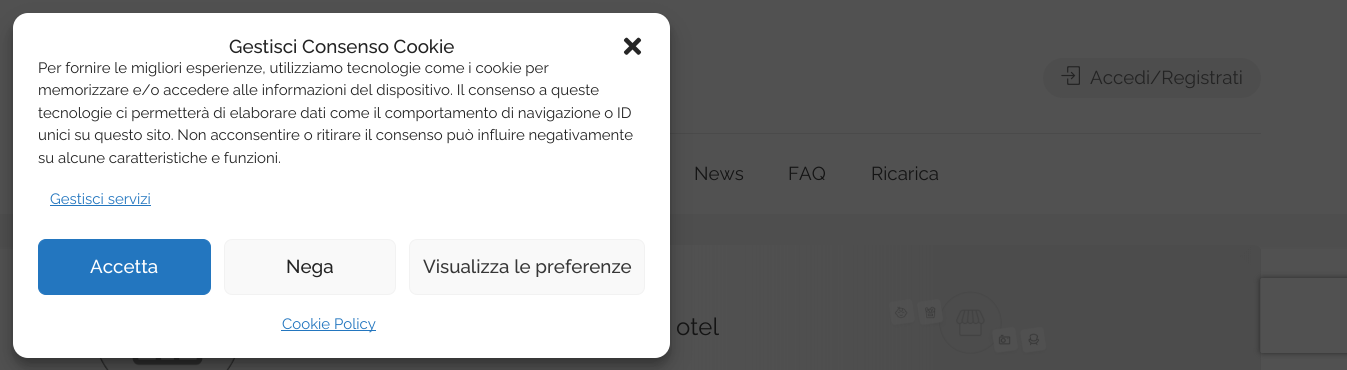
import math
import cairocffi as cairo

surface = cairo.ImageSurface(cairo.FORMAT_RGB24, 1347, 370)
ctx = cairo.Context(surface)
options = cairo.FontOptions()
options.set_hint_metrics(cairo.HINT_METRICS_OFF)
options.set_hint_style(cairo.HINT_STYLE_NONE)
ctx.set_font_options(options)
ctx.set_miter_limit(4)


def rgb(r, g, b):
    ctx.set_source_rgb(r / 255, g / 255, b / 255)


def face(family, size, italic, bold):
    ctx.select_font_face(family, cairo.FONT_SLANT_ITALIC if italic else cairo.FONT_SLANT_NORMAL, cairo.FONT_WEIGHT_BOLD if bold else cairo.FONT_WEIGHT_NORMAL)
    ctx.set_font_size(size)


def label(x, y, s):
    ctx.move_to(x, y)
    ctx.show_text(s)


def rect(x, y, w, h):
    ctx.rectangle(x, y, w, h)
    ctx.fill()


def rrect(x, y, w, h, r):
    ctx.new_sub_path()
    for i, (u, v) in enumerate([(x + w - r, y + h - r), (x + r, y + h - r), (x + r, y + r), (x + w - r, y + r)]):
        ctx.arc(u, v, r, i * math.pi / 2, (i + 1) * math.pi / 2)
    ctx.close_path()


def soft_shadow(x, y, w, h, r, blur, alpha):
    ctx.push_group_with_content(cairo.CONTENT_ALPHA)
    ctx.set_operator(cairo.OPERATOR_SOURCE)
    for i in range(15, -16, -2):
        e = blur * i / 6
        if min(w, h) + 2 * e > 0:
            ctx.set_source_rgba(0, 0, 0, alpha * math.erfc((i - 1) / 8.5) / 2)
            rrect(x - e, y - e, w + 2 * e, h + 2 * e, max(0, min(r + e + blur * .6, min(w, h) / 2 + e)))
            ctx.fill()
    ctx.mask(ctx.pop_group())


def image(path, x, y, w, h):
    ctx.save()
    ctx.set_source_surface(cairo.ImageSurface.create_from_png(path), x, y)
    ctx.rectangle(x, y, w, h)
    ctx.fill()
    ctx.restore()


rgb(81, 81, 81)
ctx.paint()
rgb(74, 74, 74)
rect(670, 133, 591, 1)
gradient = cairo.LinearGradient(674, 214, 674, 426)
gradient.add_color_stop_rgba(0, 0.306, 0.306, 0.306, 1)
gradient.add_color_stop_rgba(1, 0.318, 0.318, 0.318, 1)
ctx.set_source(gradient)
rect(0, 214, 1347, 35)
rgb(81, 81, 81)
rrect(86, 245, 1175, 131, 6)
ctx.fill()
image('image2.png', 676, 245, 585, 125)
gradient = cairo.LinearGradient(1261, 326, 674, 326)
gradient.add_color_stop_rgba(0.5, 0.318, 0.318, 0.318, 0)
gradient.add_color_stop_rgba(1, 0.318, 0.318, 0.318, 1)
ctx.set_source(gradient)
rect(676, 245, 257, 125)
image('image3.png', 99, 358, 137, 12)
rgb(5, 5, 5)
soft_shadow(13, 20, 657, 345, 15, 4, 0.23)
soft_shadow(13, 25, 657, 345, 15, 12.5, 0.19)
rgb(255, 255, 255)
rrect(13, 13, 657, 345, 15)
ctx.fill()
face('Raleway Medium', 18.75, 0, 0)
rgb(35, 35, 35)
label(229, 53, 'Gestisci Consenso Cookie')
image('image0.png', 623, 37, 19, 18)
face('Raleway Thin', 15, 0, 0)
label(38, 73, 'Per fornire le migliori esperienze, utilizziamo tecnologie come i cookie per')
label(38, 95, 'memorizzare e/o accedere alle informazioni del dispositivo. Il consenso a queste')
label(38, 118, 'tecnologie ci permetterà di elaborare dati come il comportamento di navigazione o ID')
label(38, 140, 'unici su questo sito. Non acconsentire o ritirare il consenso può influire negativamente')
label(38, 163, 'su alcune caratteristiche e funzioni.')
rgb(35, 118, 191)
label(50, 204, 'Gestisci servizi')
rect(50, 205, 101, 1)
rrect(38.5, 239.5, 172, 55, 7.5)
ctx.fill_preserve()
ctx.set_line_width(1)
ctx.stroke()
face('Raleway Medium', 18.75, 0, 0)
rgb(255, 255, 255)
label(90, 273, 'Accetta')
rgb(249, 249, 249)
rrect(224.5, 239.5, 171, 55, 7.5)
ctx.fill_preserve()
rgb(242, 242, 242)
ctx.stroke()
rgb(35, 35, 35)
label(286, 273, 'Nega')
rgb(249, 249, 249)
rrect(409.5, 239.5, 235, 55, 7.5)
ctx.fill_preserve()
rgb(242, 242, 242)
ctx.stroke()
rgb(55, 55, 55)
label(423, 273, 'Visualizza le preferenze')
rgb(35, 118, 191)
rect(281, 330, 95, 1)
face('Raleway Thin', 15, 0, 0)
label(282, 329, 'Cookie Policy')
rgb(77, 77, 77)
rrect(1043, 58, 218, 40, 20)
ctx.fill()
image('image1.png', 1061, 66, 19, 19)
face('Raleway Thin', 18.75, 0, 0)
rgb(35, 35, 35)
label(1090, 84, 'Accedi/Registrati')
rgb(20, 20, 20)
label(694, 180, 'News')
label(788, 180, 'FAQ')
label(871, 180, 'Ricarica')
face('Raleway Thin', 24, 0, 0)
label(676, 335, 'otel')
ctx.save()
ctx.set_fill_rule(cairo.FILL_RULE_EVEN_ODD)
ctx.new_path()
ctx.move_to(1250, 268)
ctx.line_to(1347, 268)
ctx.line_to(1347, 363)
ctx.line_to(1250, 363)
ctx.close_path()
ctx.move_to(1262.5, 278)
ctx.line_to(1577.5, 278)
ctx.curve_to(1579, 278, 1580, 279, 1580, 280.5)
ctx.line_to(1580, 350.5)
ctx.curve_to(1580, 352, 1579, 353, 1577.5, 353)
ctx.line_to(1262.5, 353)
ctx.curve_to(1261, 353, 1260, 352, 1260, 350.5)
ctx.line_to(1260, 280.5)
ctx.curve_to(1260, 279, 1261, 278, 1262.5, 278)
ctx.close_path()
ctx.clip()
rgb(42, 42, 42)
soft_shadow(1260, 278, 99, 75, 2.5, 3, 1)
ctx.restore()
surface.write_to_png('render.png')
